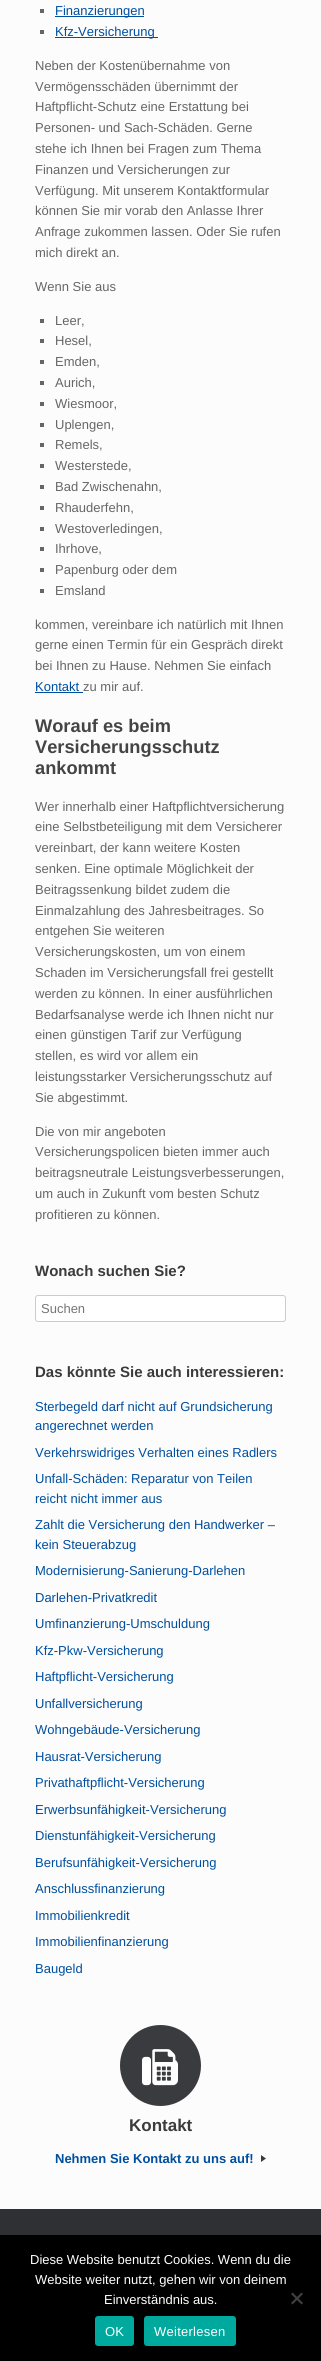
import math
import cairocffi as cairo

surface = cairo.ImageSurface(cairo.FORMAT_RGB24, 321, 2361)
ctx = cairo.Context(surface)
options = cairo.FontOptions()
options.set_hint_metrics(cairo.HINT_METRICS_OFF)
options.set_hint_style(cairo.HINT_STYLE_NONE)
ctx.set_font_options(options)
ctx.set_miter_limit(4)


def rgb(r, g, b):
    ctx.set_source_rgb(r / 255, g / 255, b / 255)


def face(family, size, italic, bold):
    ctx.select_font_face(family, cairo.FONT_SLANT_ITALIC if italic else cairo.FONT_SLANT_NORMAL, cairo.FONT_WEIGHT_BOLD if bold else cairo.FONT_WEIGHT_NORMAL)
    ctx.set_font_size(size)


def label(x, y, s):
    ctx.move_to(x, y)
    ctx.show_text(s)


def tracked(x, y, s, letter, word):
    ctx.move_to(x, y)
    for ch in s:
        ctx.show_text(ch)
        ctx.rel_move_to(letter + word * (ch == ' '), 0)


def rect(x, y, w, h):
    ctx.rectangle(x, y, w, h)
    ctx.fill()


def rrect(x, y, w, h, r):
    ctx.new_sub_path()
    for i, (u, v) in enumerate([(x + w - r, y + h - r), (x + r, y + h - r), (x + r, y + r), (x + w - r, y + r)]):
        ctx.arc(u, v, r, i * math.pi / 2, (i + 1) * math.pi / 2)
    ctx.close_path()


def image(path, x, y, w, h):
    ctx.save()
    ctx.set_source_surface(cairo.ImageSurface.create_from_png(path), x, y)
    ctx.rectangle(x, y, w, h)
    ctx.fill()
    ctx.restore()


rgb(252, 252, 252)
ctx.paint()
rgb(102, 102, 102)
rect(40, 9, 4, 4)
rgb(0, 79, 159)
rect(55, 16, 89, 1)
face('Liberation Sans', 13, 0, 0)
label(55, 15, 'Finanzierungen')
rgb(102, 102, 102)
rect(40, 30, 4, 4)
rgb(0, 79, 159)
rect(55, 37, 103, 1)
label(55, 36, 'Kfz-Versicherung')
rgb(102, 102, 102)
label(35, 70, 'Neben der Kostenübernahme von')
label(35, 91, 'Vermögensschäden übernimmt der')
label(35, 111, 'Haftpflicht-Schutz eine Erstattung bei')
label(35, 132, 'Personen- und Sach-Schäden. Gerne')
label(35, 153, 'stehe ich Ihnen bei Fragen zum Thema')
label(35, 174, 'Finanzen und Versicherungen zur')
label(35, 195, 'Verfügung. Mit unserem Kontaktformular')
label(35, 215, 'können Sie mir vorab den Anlasse Ihrer')
label(35, 236, 'Anfrage zukommen lassen. Oder Sie rufen')
label(35, 257, 'mich direkt an.')
label(35, 291, 'Wenn Sie aus')
rect(40, 319, 4, 4)
label(55, 325, 'Leer,')
rect(40, 339, 4, 4)
label(55, 345, 'Hesel,')
rect(40, 360, 4, 4)
label(55, 366, 'Emden,')
rect(40, 381, 4, 4)
label(55, 387, 'Aurich,')
rect(40, 402, 4, 4)
label(55, 408, 'Wiesmoor,')
rect(40, 423, 4, 4)
label(55, 429, 'Uplengen,')
rect(40, 443, 4, 4)
label(55, 449, 'Remels,')
rect(40, 464, 4, 4)
label(55, 470, 'Westerstede,')
rect(40, 485, 4, 4)
label(55, 491, 'Bad Zwischenahn,')
rect(40, 506, 4, 4)
label(55, 512, 'Rhauderfehn,')
rect(40, 527, 4, 4)
label(55, 533, 'Westoverledingen,')
rect(40, 547, 4, 4)
label(55, 553, 'Ihrhove,')
rect(40, 568, 4, 4)
label(55, 574, 'Papenburg oder dem')
rect(40, 589, 4, 4)
label(55, 595, 'Emsland')
label(35, 629, 'kommen, vereinbare ich natürlich mit Ihnen')
label(35, 649, 'gerne einen Termin für ein Gespräch direkt')
label(35, 670, 'bei Ihnen zu Hause. Nehmen Sie einfach')
rgb(0, 79, 159)
label(35, 691, 'Kontakt')
rect(35, 692, 48, 1)
rgb(102, 102, 102)
label(83, 691, 'zu mir auf.')
face('Liberation Sans', 18.25, 0, 1)
rgb(68, 68, 68)
label(35, 732, 'Worauf es beim')
label(35, 753, 'Versicherungsschutz')
label(35, 774, 'ankommt')
face('Liberation Sans', 13, 0, 0)
rgb(102, 102, 102)
label(35, 811, 'Wer innerhalb einer Haftpflichtversicherung')
label(35, 831, 'eine Selbstbeteiligung mit dem Versicherer')
label(35, 852, 'vereinbart, der kann weitere Kosten')
label(35, 873, 'senken. Eine optimale Möglichkeit der')
label(35, 894, 'Beitragssenkung bildet zudem die')
label(35, 915, 'Einmalzahlung des Jahresbeitrages. So')
label(35, 935, 'entgehen Sie weiteren')
label(35, 956, 'Versicherungskosten, um von einem')
label(35, 977, 'Schaden im Versicherungsfall frei gestellt')
label(35, 998, 'werden zu können. In einer ausführlichen')
label(35, 1019, 'Bedarfsanalyse werde ich Ihnen nicht nur')
label(35, 1039, 'einen günstigen Tarif zur Verfügung')
label(35, 1060, 'stellen, es wird vor allem ein')
label(35, 1081, 'leistungsstarker Versicherungsschutz auf')
label(35, 1102, 'Sie abgestimmt.')
label(35, 1136, 'Die von mir angeboten')
label(35, 1156, 'Versicherungspolicen bieten immer auch')
label(35, 1177, 'beitragsneutrale Leistungsverbesserungen,')
label(35, 1198, 'um auch in Zukunft vom besten Schutz')
label(35, 1219, 'profitieren zu können.')
face('Liberation Sans', 15, 0, 1)
rgb(59, 59, 59)
label(35, 1276, 'Wonach suchen Sie?')
rgb(255, 255, 255)
rrect(35.5, 1295.5, 250, 26, 2.5)
ctx.fill_preserve()
rgb(204, 204, 204)
ctx.set_line_width(1)
ctx.stroke()
face('Liberation Sans', 13, 0, 0)
rgb(117, 117, 117)
label(41, 1313, 'Suchen')
face('Liberation Sans', 15, 0, 1)
rgb(59, 59, 59)
label(35, 1377, 'Das könnte Sie auch interessieren:')
face('Liberation Sans', 13, 0, 0)
rgb(0, 79, 159)
label(35, 1411, 'Sterbegeld darf nicht auf Grundsicherung')
label(35, 1430, 'angerechnet werden')
label(35, 1457, 'Verkehrswidriges Verhalten eines Radlers')
label(35, 1483, 'Unfall-Schäden: Reparatur von Teilen')
label(35, 1503, 'reicht nicht immer aus')
label(35, 1529, 'Zahlt die Versicherung den Handwerker –')
label(35, 1549, 'kein Steuerabzug')
label(35, 1575, 'Modernisierung-Sanierung-Darlehen')
label(35, 1602, 'Darlehen-Privatkredit')
label(35, 1628, 'Umfinanzierung-Umschuldung')
label(35, 1655, 'Kfz-Pkw-Versicherung')
label(35, 1681, 'Haftpflicht-Versicherung')
label(35, 1708, 'Unfallversicherung')
label(35, 1734, 'Wohngebäude-Versicherung')
label(35, 1761, 'Hausrat-Versicherung')
label(35, 1787, 'Privathaftpflicht-Versicherung')
label(35, 1814, 'Erwerbsunfähigkeit-Versicherung')
label(35, 1840, 'Dienstunfähigkeit-Versicherung')
label(35, 1867, 'Berufsunfähigkeit-Versicherung')
label(35, 1893, 'Anschlussfinanzierung')
label(35, 1920, 'Immobilienkredit')
label(35, 1946, 'Immobilienfinanzierung')
label(35, 1973, 'Baugeld')
rgb(58, 59, 62)
ctx.new_path()
ctx.arc(160.5, 2065.5, 40.5, 0, 2 * math.pi)
ctx.fill()
image('image0.png', 142, 2049, 36, 37)
face('Liberation Sans', 17, 0, 1)
rgb(59, 59, 59)
label(129, 2131, 'Kontakt')
face('Liberation Sans', 13, 0, 1)
rgb(0, 79, 159)
label(55, 2163, 'Nehmen Sie Kontakt zu uns auf!')
image('image1.png', 261, 2155, 5, 7)
rgb(47, 48, 51)
rect(0, 2209, 321, 26)
rgb(0, 0, 0)
rect(0, 2235, 321, 126)
face('Liberation Sans', 13, 0, 0)
rgb(255, 255, 255)
label(30, 2264, 'Diese Website benutzt Cookies. Wenn du die')
label(35, 2284, 'Website weiter nutzt, gehen wir von deinem')
label(104, 2304, 'Einverständnis aus.')
rgb(64, 64, 64)
ctx.new_path()
ctx.move_to(301.5, 2292.5)
ctx.line_to(303, 2294)
ctx.line_to(292.5, 2304.5)
ctx.line_to(291, 2303)
ctx.close_path()
ctx.fill()
ctx.new_path()
ctx.move_to(291, 2294)
ctx.line_to(292.5, 2292.5)
ctx.line_to(303, 2303)
ctx.line_to(301.5, 2304.5)
ctx.close_path()
ctx.fill()
rgb(0, 169, 157)
rrect(95, 2316, 39, 30, 3)
ctx.fill()
rgb(255, 255, 255)
tracked(105, 2336, 'OK', 0.25, 0)
rgb(0, 169, 157)
rrect(144, 2316, 92, 30, 3)
ctx.fill()
rgb(255, 255, 255)
tracked(154, 2336, 'Weiterlesen', 0.25, 0)
surface.write_to_png('render.png')
